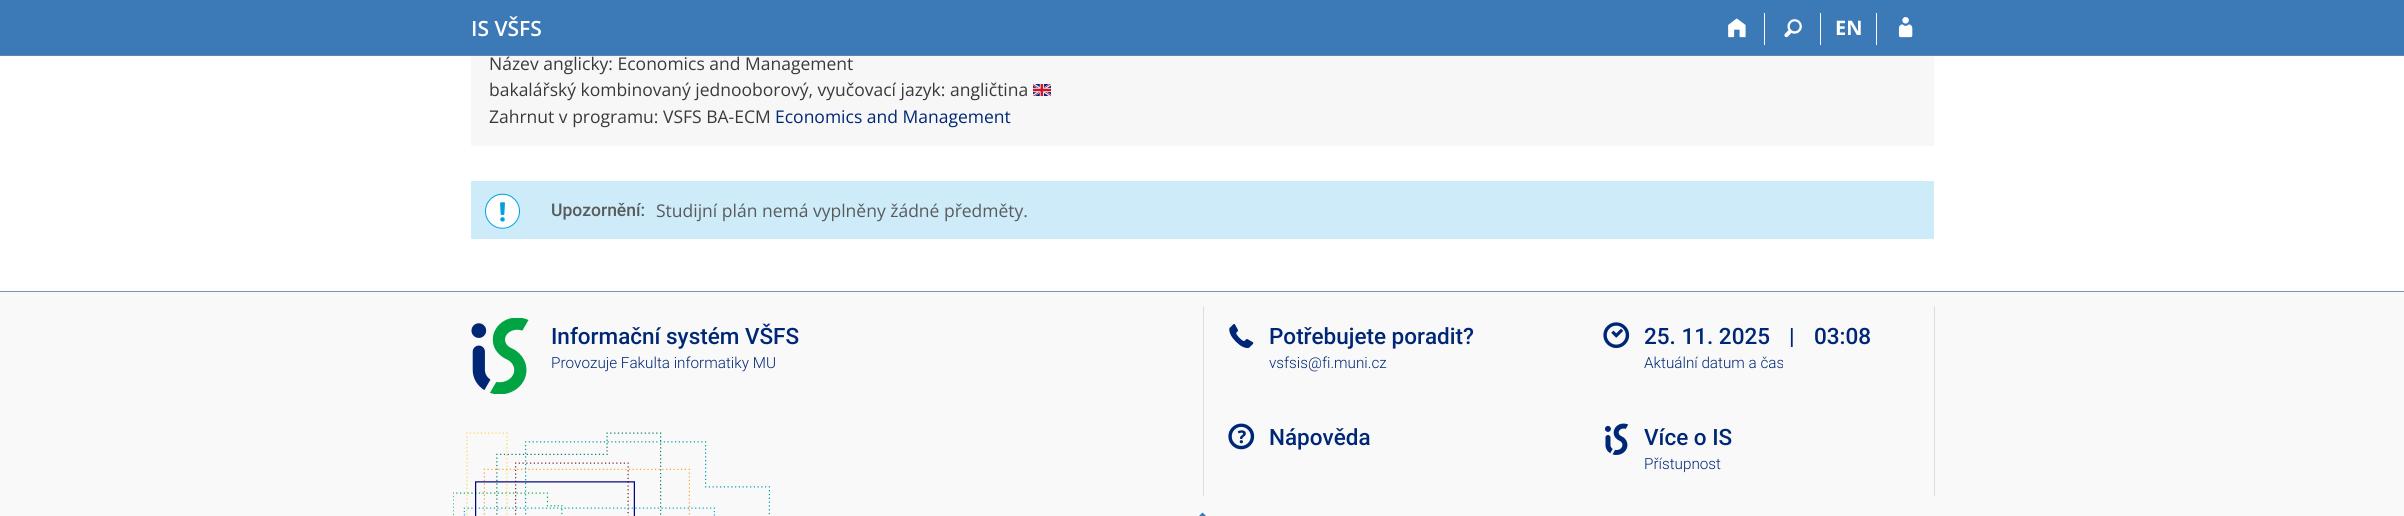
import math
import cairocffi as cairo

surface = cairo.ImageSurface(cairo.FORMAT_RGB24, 2404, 516)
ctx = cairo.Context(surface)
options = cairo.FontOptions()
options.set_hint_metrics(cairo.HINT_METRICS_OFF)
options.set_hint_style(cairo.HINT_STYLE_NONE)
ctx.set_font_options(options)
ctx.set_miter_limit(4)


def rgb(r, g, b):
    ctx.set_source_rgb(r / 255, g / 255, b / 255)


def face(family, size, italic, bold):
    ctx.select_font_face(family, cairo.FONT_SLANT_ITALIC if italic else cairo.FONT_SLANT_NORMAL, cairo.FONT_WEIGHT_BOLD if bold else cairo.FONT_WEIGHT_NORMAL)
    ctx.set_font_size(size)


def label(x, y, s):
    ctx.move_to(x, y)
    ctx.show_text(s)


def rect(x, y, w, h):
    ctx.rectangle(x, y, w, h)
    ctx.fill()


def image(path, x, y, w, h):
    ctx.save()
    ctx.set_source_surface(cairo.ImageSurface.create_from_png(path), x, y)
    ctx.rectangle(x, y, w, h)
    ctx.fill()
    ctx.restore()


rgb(255, 255, 255)
ctx.paint()
rgb(60, 122, 183)
rect(0, 0, 2404, 55)
rgb(92, 136, 182)
rect(0, 55, 2404, 1)
face('Open Sans SemiBold', 21, 0, 0)
rgb(255, 255, 255)
label(471, 36, 'IS VŠFS')
rect(1764, 13, 1, 32)
image('image0.png', 1728, 18, 18, 20)
rect(1820, 13, 1, 32)
image('image1.png', 1784, 19, 18, 19)
rect(1876, 13, 1, 32)
face('Open Sans', 20, 0, 1)
label(1835, 35, 'EN')
image('image2.png', 1898, 17, 15, 21)
rgb(247, 247, 247)
rect(471, 56, 1463, 90)
face('Open Sans', 17.5, 0, 0)
rgb(58, 58, 58)
label(489, 70, 'Název anglicky: Economics and Management')
label(489, 96, 'bakalářský kombinovaný jednooborový, vyučovací jazyk: angličtina')
image('image3.png', 1033, 84, 18, 12)
label(489, 123, 'Zahrnut v programu: VSFS BA-ECM')
rgb(0, 39, 118)
label(775, 123, 'Economics and Management')
rgb(205, 235, 249)
rect(471, 181, 1463, 58)
rgb(255, 255, 255)
ctx.new_path()
ctx.arc(502.5, 211.5, 17.5, 0, 2 * math.pi)
ctx.fill()
image('image4.png', 485, 193, 35, 36)
face('Roboto Medium', 17.5, 0, 0)
rgb(90, 90, 90)
label(551, 216, 'Upozornění:')
face('Open Sans', 17.5, 0, 0)
label(656, 217, 'Studijní plán nemá vyplněny žádné předměty.')
rgb(249, 249, 249)
rect(0, 292, 2404, 224)
rgb(125, 144, 184)
rect(0, 291, 2404, 1)
image('image5.png', 453, 432, 317, 84)
image('image6.png', 471, 318, 58, 76)
face('Roboto Medium', 22.5, 0, 0)
rgb(0, 39, 118)
label(551, 344, 'Informační systém VŠFS')
face('Roboto Light', 15.25, 0, 0)
label(551, 368, 'Provozuje Fakulta informatiky MU')
rgb(221, 221, 221)
rect(1203, 306, 1, 190)
image('image7.png', 1229, 323, 25, 25)
face('Roboto Medium', 22.5, 0, 0)
rgb(0, 39, 118)
label(1269, 344, 'Potřebujete poradit?')
face('Roboto Light', 15.25, 0, 0)
label(1269, 368, 'vsfsis@fi.muni.cz')
image('image8.png', 1228, 423, 27, 27)
face('Roboto Medium', 22.5, 0, 0)
label(1269, 445, 'Nápověda')
image('image9.png', 1603, 322, 27, 26)
label(1644, 344, '25. 11. 2025')
label(1789, 344, '|')
label(1814, 344, '03:08')
face('Roboto Light', 15.25, 0, 0)
label(1644, 368, 'Aktuální datum a čas')
image('image10.png', 1604, 423, 25, 32)
face('Roboto Medium', 22.5, 0, 0)
label(1644, 445, 'Více o IS')
face('Roboto Light', 15.25, 0, 0)
label(1644, 469, 'Přístupnost')
rgb(221, 221, 221)
rect(1934, 306, 1, 190)
rgb(60, 122, 183)
ctx.new_path()
ctx.move_to(1216, 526)
ctx.line_to(1189, 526)
ctx.line_to(1202.5, 512.5)
ctx.close_path()
ctx.fill()
surface.write_to_png('render.png')
